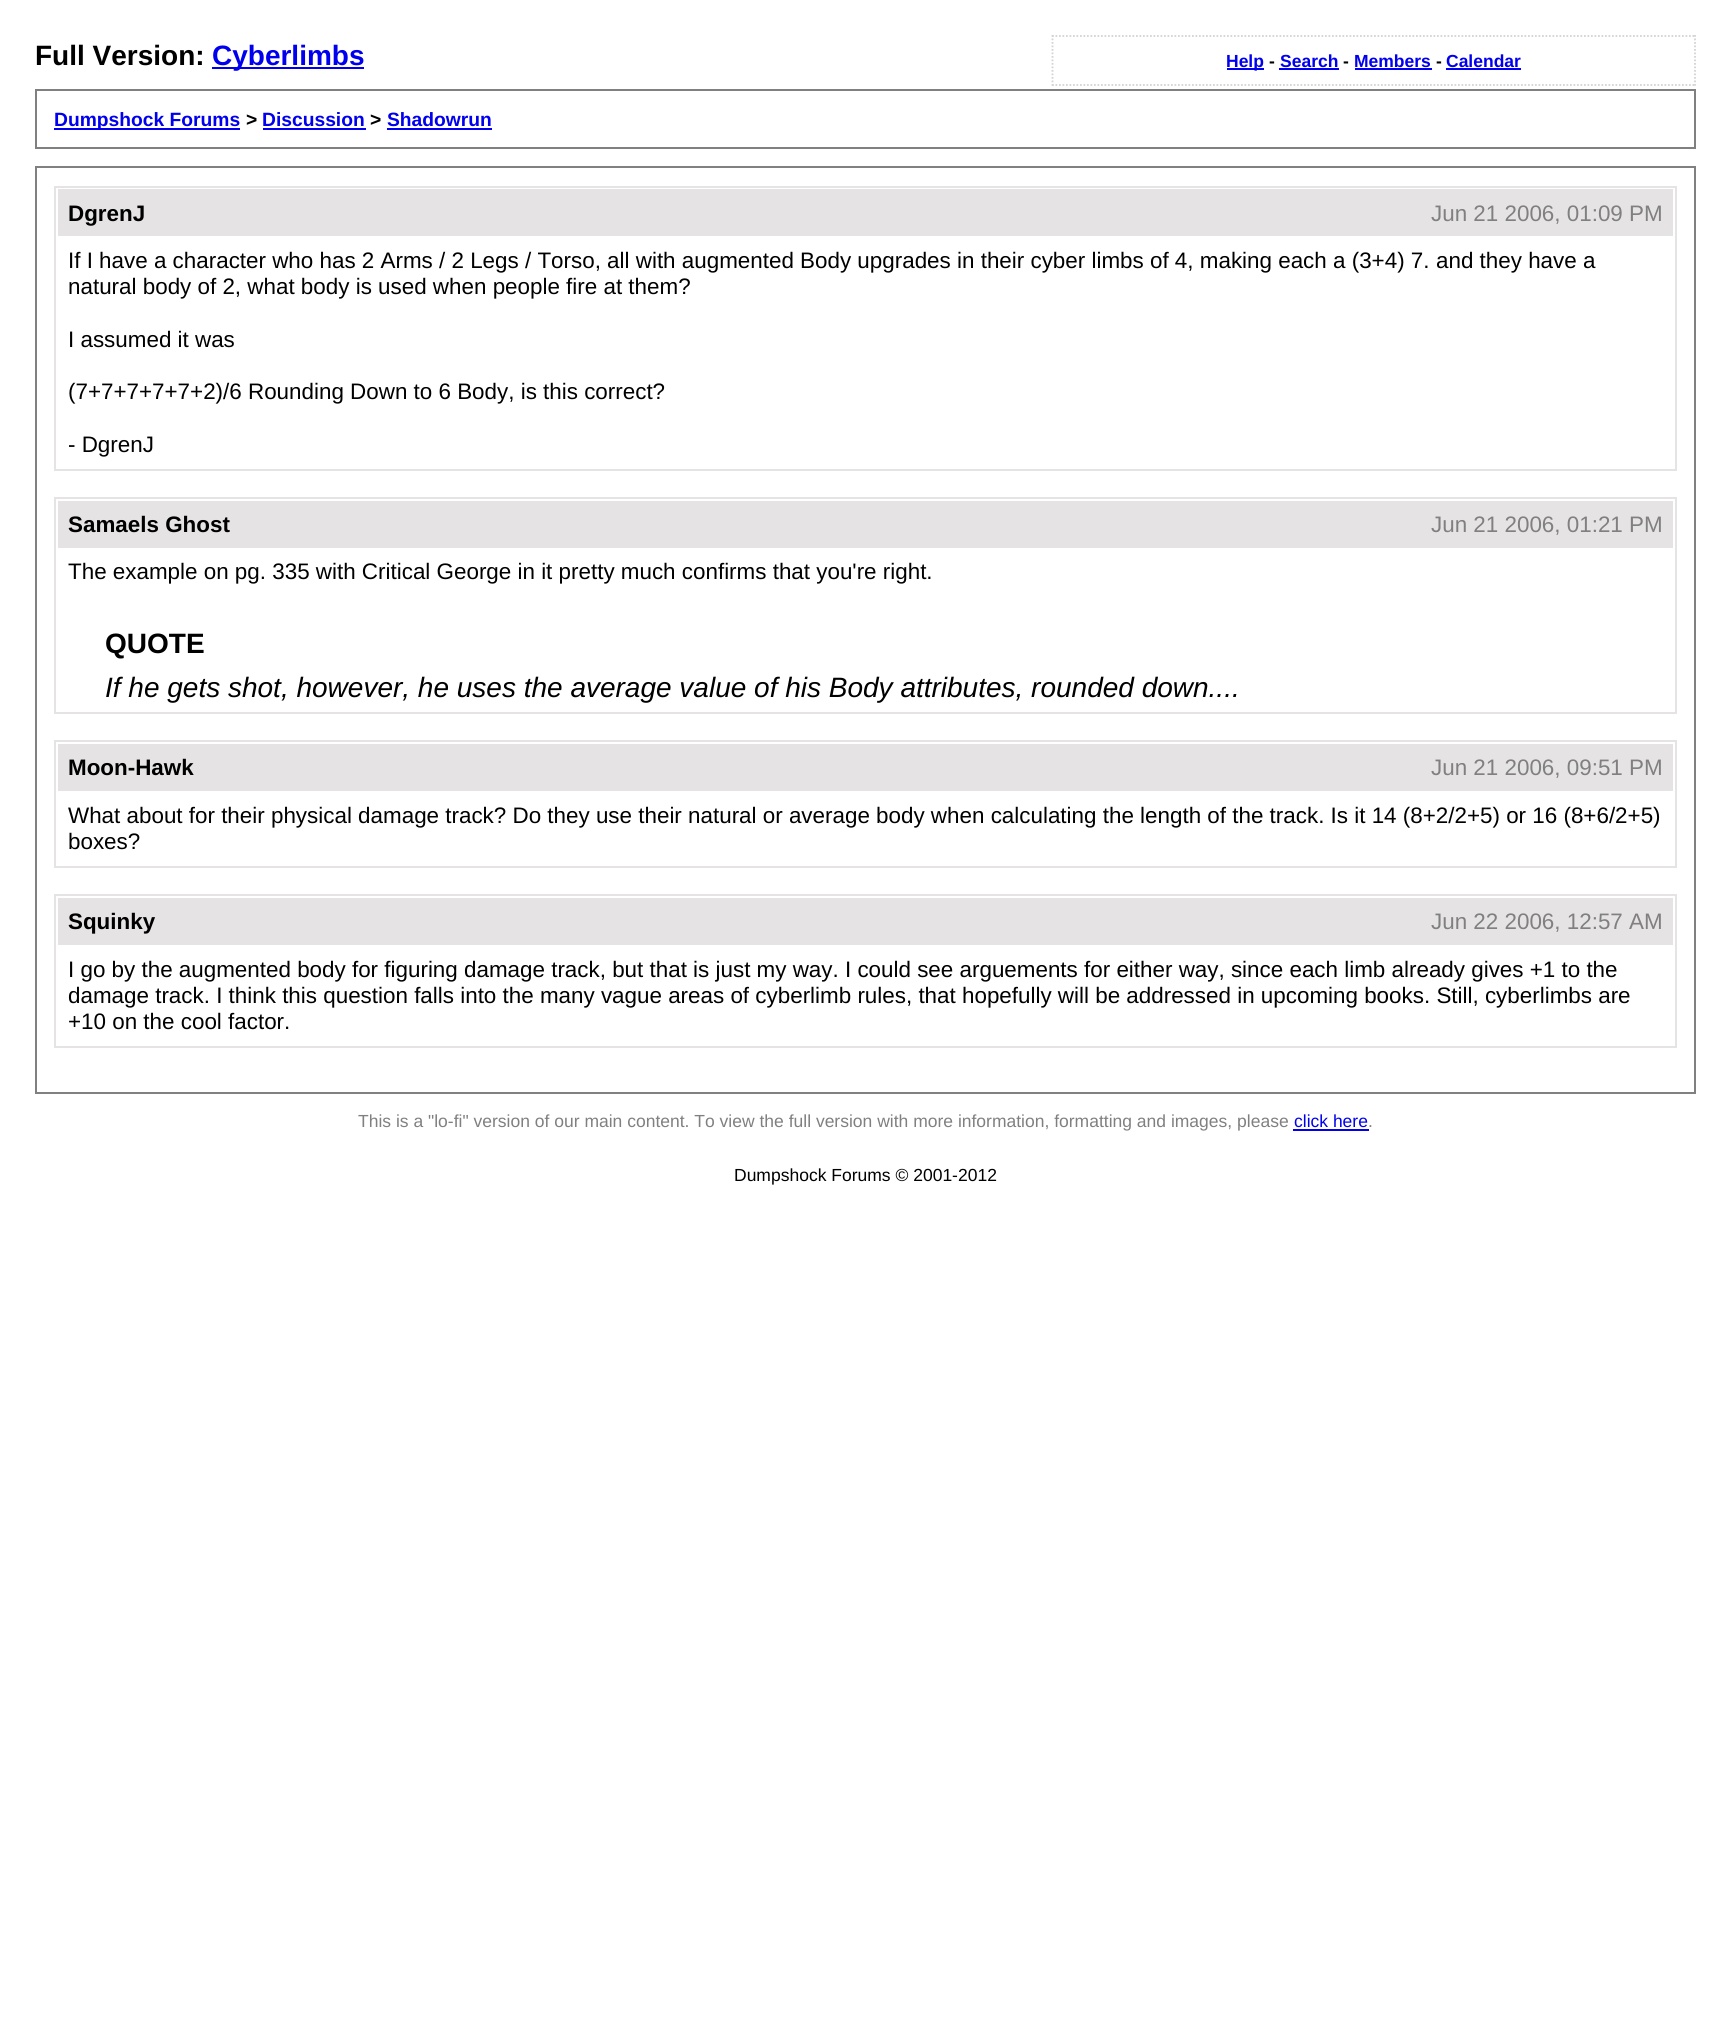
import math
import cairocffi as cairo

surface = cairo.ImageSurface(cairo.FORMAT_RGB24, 1730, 2029)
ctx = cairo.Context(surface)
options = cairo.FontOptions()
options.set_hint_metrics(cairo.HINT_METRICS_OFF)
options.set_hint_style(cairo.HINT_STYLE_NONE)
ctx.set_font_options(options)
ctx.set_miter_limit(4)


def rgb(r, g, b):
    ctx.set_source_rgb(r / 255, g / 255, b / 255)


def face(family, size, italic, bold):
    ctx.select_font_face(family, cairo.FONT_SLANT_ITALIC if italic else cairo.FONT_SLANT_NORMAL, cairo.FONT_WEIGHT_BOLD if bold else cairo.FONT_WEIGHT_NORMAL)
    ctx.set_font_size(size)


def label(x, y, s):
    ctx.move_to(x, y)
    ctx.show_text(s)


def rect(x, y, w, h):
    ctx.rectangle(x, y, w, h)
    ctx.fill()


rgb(255, 255, 255)
ctx.paint()
face('Liberation Sans', 28, 0, 1)
rgb(0, 0, 0)
label(35, 65, 'Full Version:')
rgb(0, 0, 238)
rect(212, 67, 152, 2)
label(212, 65, 'Cyberlimbs')
ctx.new_path()
ctx.move_to(1052, 36)
ctx.line_to(1696, 36)
rgb(211, 211, 211)
ctx.set_line_width(1.8)
ctx.set_dash([1.75, 1.75])
ctx.stroke()
ctx.new_path()
ctx.move_to(1695, 35)
ctx.line_to(1695, 86)
ctx.stroke()
ctx.new_path()
ctx.move_to(1052, 85)
ctx.line_to(1696, 85)
ctx.stroke()
ctx.new_path()
ctx.move_to(1052.5, 35)
ctx.line_to(1052.5, 86)
ctx.stroke()
rgb(0, 0, 238)
rect(1227, 68, 37, 2)
face('Liberation Sans', 17.5, 0, 1)
label(1226, 67, 'Help')
rgb(0, 0, 0)
label(1269, 67, '-')
rgb(0, 0, 238)
label(1280, 67, 'Search')
rect(1279, 68, 60, 2)
rgb(0, 0, 0)
label(1343, 67, '-')
rgb(0, 0, 238)
label(1354, 67, 'Members')
rect(1355, 68, 77, 2)
rgb(0, 0, 0)
label(1436, 67, '-')
rgb(0, 0, 238)
label(1446, 67, 'Calendar')
rect(1446, 68, 75, 2)
ctx.rectangle(36, 90, 1659, 58)
rgb(128, 128, 128)
ctx.set_line_width(2)
ctx.set_dash([])
ctx.stroke()
rgb(0, 0, 238)
rect(54, 128, 186, 2)
face('Liberation Sans', 19.25, 0, 1)
label(54, 126, 'Dumpshock Forums')
rgb(0, 0, 0)
label(246, 126, '>')
rgb(0, 0, 238)
label(262, 126, 'Discussion')
rect(263, 128, 103, 2)
rgb(0, 0, 0)
label(370, 126, '>')
rgb(0, 0, 238)
label(387, 126, 'Shadowrun')
rect(387, 128, 105, 2)
ctx.rectangle(36, 167, 1659, 926)
rgb(128, 128, 128)
ctx.stroke()
ctx.rectangle(55, 187, 1621, 283)
rgb(230, 227, 228)
ctx.stroke()
rect(58, 189, 1615, 47)
face('Liberation Sans', 22.4, 0, 1)
rgb(0, 0, 0)
label(68, 221, 'DgrenJ')
face('Liberation Sans', 22.4, 0, 0)
rgb(128, 128, 128)
label(1431, 221, 'Jun 21 2006, 01:09 PM')
rgb(0, 0, 0)
label(68, 268, 'If I have a character who has 2 Arms / 2 Legs / Torso, all with augmented Body upgrades in their cyber limbs of 4, making each a (3+4) 7.')
label(1436, 268, 'and they have a')
label(68, 294, 'natural body of 2, what body is used when people fire at them?')
label(68, 347, 'I assumed it was')
label(68, 399, '(7+7+7+7+7+2)/6 Rounding Down to 6 Body, is this correct?')
label(68, 452, '- DgrenJ')
ctx.rectangle(55, 498, 1621, 215)
rgb(230, 227, 228)
ctx.stroke()
rect(58, 501, 1615, 47)
face('Liberation Sans', 22.4, 0, 1)
rgb(0, 0, 0)
label(68, 532, 'Samaels Ghost')
face('Liberation Sans', 22.4, 0, 0)
rgb(128, 128, 128)
label(1431, 532, 'Jun 21 2006, 01:21 PM')
rgb(0, 0, 0)
label(68, 579, 'The example on pg. 335 with Critical George in it pretty much confirms that you\'re right.')
face('Liberation Sans', 28, 0, 1)
label(105, 653, 'QUOTE')
face('Liberation Sans', 28, 1, 0)
label(105, 697, 'If he gets shot, however, he uses the average value of his Body attributes, rounded down....')
ctx.rectangle(55, 741, 1621, 126)
rgb(230, 227, 228)
ctx.stroke()
rect(58, 744, 1615, 47)
face('Liberation Sans', 22.4, 0, 1)
rgb(0, 0, 0)
label(68, 775, 'Moon-Hawk')
face('Liberation Sans', 22.4, 0, 0)
rgb(128, 128, 128)
label(1431, 775, 'Jun 21 2006, 09:51 PM')
rgb(0, 0, 0)
label(68, 823, 'What about for their physical damage track? Do they use their natural or average body when calculating the length of the track. Is it 14 (8+2/2+5) or 16 (8+6/2+5)')
label(68, 849, 'boxes?')
ctx.rectangle(55, 895, 1621, 152)
rgb(230, 227, 228)
ctx.stroke()
rect(58, 898, 1615, 47)
face('Liberation Sans', 22.4, 0, 1)
rgb(0, 0, 0)
label(68, 929, 'Squinky')
face('Liberation Sans', 22.4, 0, 0)
rgb(128, 128, 128)
label(1431, 929, 'Jun 22 2006, 12:57 AM')
rgb(0, 0, 0)
label(68, 977, 'I go by the augmented body for figuring damage track, but that is just my way. I could see arguements for either way, since each limb already gives +1 to the')
label(68, 1003, 'damage track. I think this question falls into the many vague areas of cyberlimb rules, that hopefully will be addressed in upcoming books. Still, cyberlimbs are')
label(68, 1029, '+10 on the cool factor.')
face('Liberation Sans', 17.5, 0, 0)
rgb(128, 128, 128)
label(358, 1127, 'This is a "lo-fi" version of our main content. To view the full version with more information, formatting and images, please')
rgb(0, 0, 238)
label(1294, 1127, 'click here')
rect(1293, 1129, 76, 2)
rgb(128, 128, 128)
label(1368, 1127, '.')
rgb(0, 0, 0)
label(734, 1181, 'Dumpshock Forums © 2001-2012')
surface.write_to_png('render.png')
